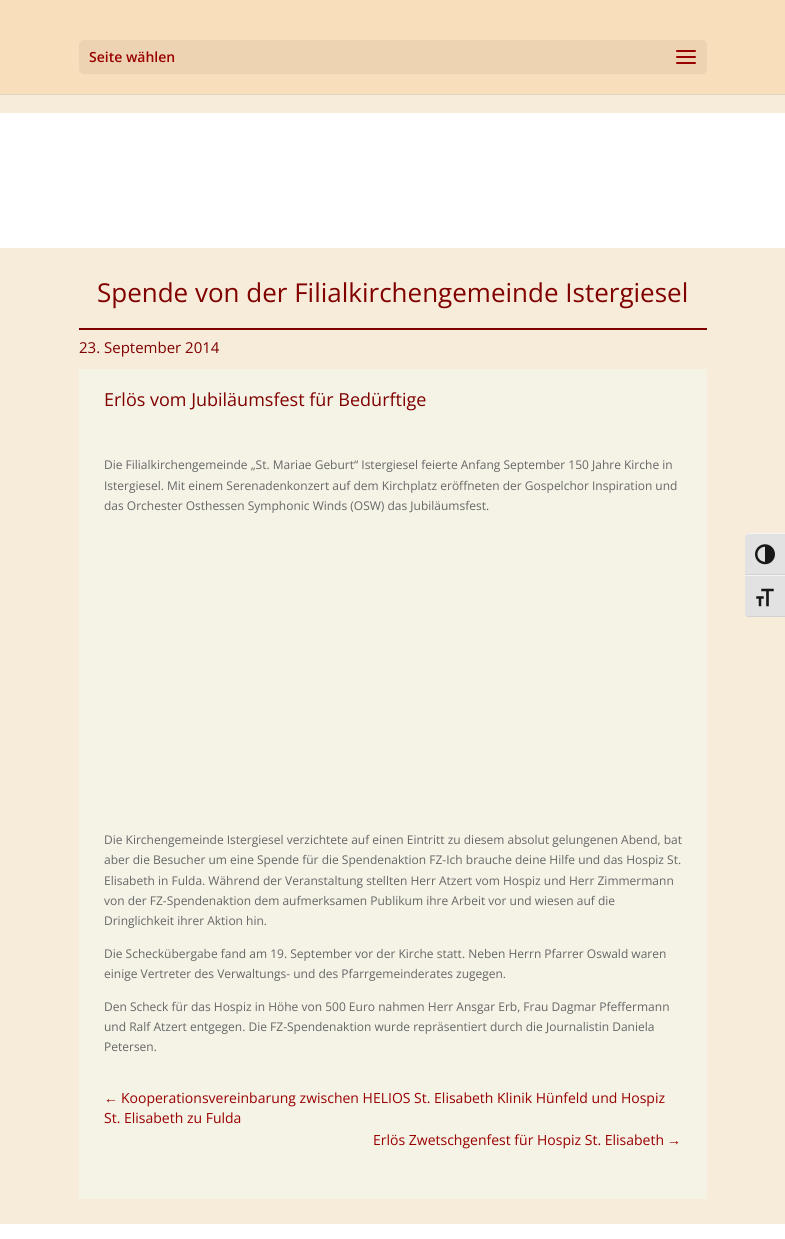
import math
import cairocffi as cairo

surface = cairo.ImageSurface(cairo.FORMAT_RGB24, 785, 1239)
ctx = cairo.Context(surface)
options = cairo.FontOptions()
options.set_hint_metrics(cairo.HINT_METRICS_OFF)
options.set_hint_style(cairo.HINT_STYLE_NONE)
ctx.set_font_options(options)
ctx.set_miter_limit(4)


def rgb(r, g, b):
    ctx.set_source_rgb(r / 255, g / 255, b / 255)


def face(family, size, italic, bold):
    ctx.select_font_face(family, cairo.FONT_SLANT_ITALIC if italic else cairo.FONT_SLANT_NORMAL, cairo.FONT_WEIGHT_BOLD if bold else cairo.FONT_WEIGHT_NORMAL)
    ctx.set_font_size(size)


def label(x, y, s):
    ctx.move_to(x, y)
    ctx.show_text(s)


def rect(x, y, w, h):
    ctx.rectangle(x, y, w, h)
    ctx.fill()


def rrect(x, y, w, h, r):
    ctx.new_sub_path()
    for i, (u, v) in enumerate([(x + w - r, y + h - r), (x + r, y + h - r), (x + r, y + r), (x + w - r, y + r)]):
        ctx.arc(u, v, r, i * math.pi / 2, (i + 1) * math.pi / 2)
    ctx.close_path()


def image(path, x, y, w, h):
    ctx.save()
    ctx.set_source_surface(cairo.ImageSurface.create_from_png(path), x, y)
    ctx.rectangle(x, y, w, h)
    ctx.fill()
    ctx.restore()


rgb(247, 236, 218)
ctx.paint()
rgb(222, 212, 196)
rect(0, 94, 785, 1)
rgb(249, 222, 187)
rect(0, 0, 785, 94)
rgb(237, 211, 178)
rrect(79, 40, 628, 34, 5)
ctx.fill()
face('Open Sans SemiBold', 14, 0, 0)
rgb(153, 0, 0)
label(89, 62, 'Seite wählen')
image('image0.png', 676, 50, 20, 14)
rgb(255, 255, 255)
rect(0, 113, 785, 1126)
rgb(247, 236, 218)
rect(0, 248, 785, 976)
face('Open Sans', 26, 0, 0)
rgb(128, 0, 0)
label(97, 302, 'Spende von der Filialkirchengemeinde Istergiesel')
rect(79, 328, 628, 2)
face('Open Sans', 15, 0, 0)
label(79, 353, '23. September 2014')
rgb(245, 242, 230)
rect(79, 369, 628, 830)
face('Open Sans', 18, 0, 0)
rgb(128, 0, 0)
label(104, 406, 'Erlös vom Jubiläumsfest für Bedürftige')
face('Open Sans', 12, 0, 0)
rgb(102, 102, 102)
label(104, 469, 'Die Filialkirchengemeinde „St. Mariae Geburt“ Istergiesel feierte Anfang September 150 Jahre Kirche in')
label(104, 490, 'Istergiesel. Mit einem Serenadenkonzert auf dem Kirchplatz eröffneten der Gospelchor Inspiration und')
label(104, 510, 'das Orchester Osthessen Symphonic Winds (OSW) das Jubiläumsfest.')
label(104, 844, 'Die Kirchengemeinde Istergiesel verzichtete auf einen Eintritt zu diesem absolut gelungenen Abend, bat')
label(104, 864, 'aber die Besucher um eine Spende für die Spendenaktion FZ-Ich brauche deine Hilfe und das Hospiz St.')
label(104, 885, 'Elisabeth in Fulda. Während der Veranstaltung stellten Herr Atzert vom Hospiz und Herr Zimmermann')
label(104, 905, 'von der FZ-Spendenaktion dem aufmerksamen Publikum ihre Arbeit vor und wiesen auf die')
label(104, 925, 'Dringlichkeit ihrer Aktion hin.')
label(104, 958, 'Die Scheckübergabe fand am 19. September vor der Kirche statt. Neben Herrn Pfarrer Oswald waren')
label(104, 978, 'einige Vertreter des Verwaltungs- und des Pfarrgemeinderates zugegen.')
label(104, 1011, 'Den Scheck für das Hospiz in Höhe von 500 Euro nahmen Herr Ansgar Erb, Frau Dagmar Pfeffermann')
label(104, 1031, 'und Ralf Atzert entgegen. Die FZ-Spendenaktion wurde repräsentiert durch die Journalistin Daniela')
label(104, 1051, 'Petersen.')
face('Liberation Sans', 14, 0, 0)
rgb(153, 0, 0)
label(104, 1103, '←')
face('Open Sans', 14, 0, 0)
label(121, 1103, 'Kooperationsvereinbarung zwischen HELIOS St. Elisabeth Klinik Hünfeld und Hospiz')
label(104, 1123, 'St. Elisabeth zu Fulda')
label(373, 1145, 'Erlös Zwetschgenfest für Hospiz St. Elisabeth')
face('Liberation Sans', 14, 0, 0)
label(667, 1145, '→')
rgb(226, 226, 226)
ctx.new_path()
ctx.move_to(749, 533)
ctx.line_to(785, 533)
ctx.line_to(785, 575)
ctx.line_to(745, 575)
ctx.line_to(745, 537)
ctx.curve_to(745, 535, 747, 533, 749, 533)
ctx.close_path()
ctx.fill()
rgb(245, 245, 245)
ctx.new_path()
ctx.move_to(749, 534)
ctx.line_to(785, 534)
ctx.line_to(785, 533)
ctx.line_to(749, 533)
ctx.curve_to(747, 533, 745, 535, 745, 537)
ctx.curve_to(745, 535, 747, 534, 749, 534)
ctx.close_path()
ctx.fill()
rgb(210, 210, 210)
rect(745, 574, 40, 1)
image('image1.png', 755, 544, 20, 21)
rgb(226, 226, 226)
ctx.new_path()
ctx.move_to(745, 575)
ctx.line_to(785, 575)
ctx.line_to(785, 617)
ctx.line_to(749, 617)
ctx.curve_to(747, 617, 745, 615, 745, 613)
ctx.close_path()
ctx.fill()
rgb(245, 245, 245)
rect(745, 575, 40, 1)
rgb(210, 210, 210)
ctx.new_path()
ctx.move_to(785, 617)
ctx.line_to(785, 616)
ctx.line_to(749, 616)
ctx.curve_to(747, 616, 745, 615, 745, 613)
ctx.curve_to(745, 615, 747, 617, 749, 617)
ctx.close_path()
ctx.fill()
image('image2.png', 756, 588, 18, 19)
surface.write_to_png('render.png')
